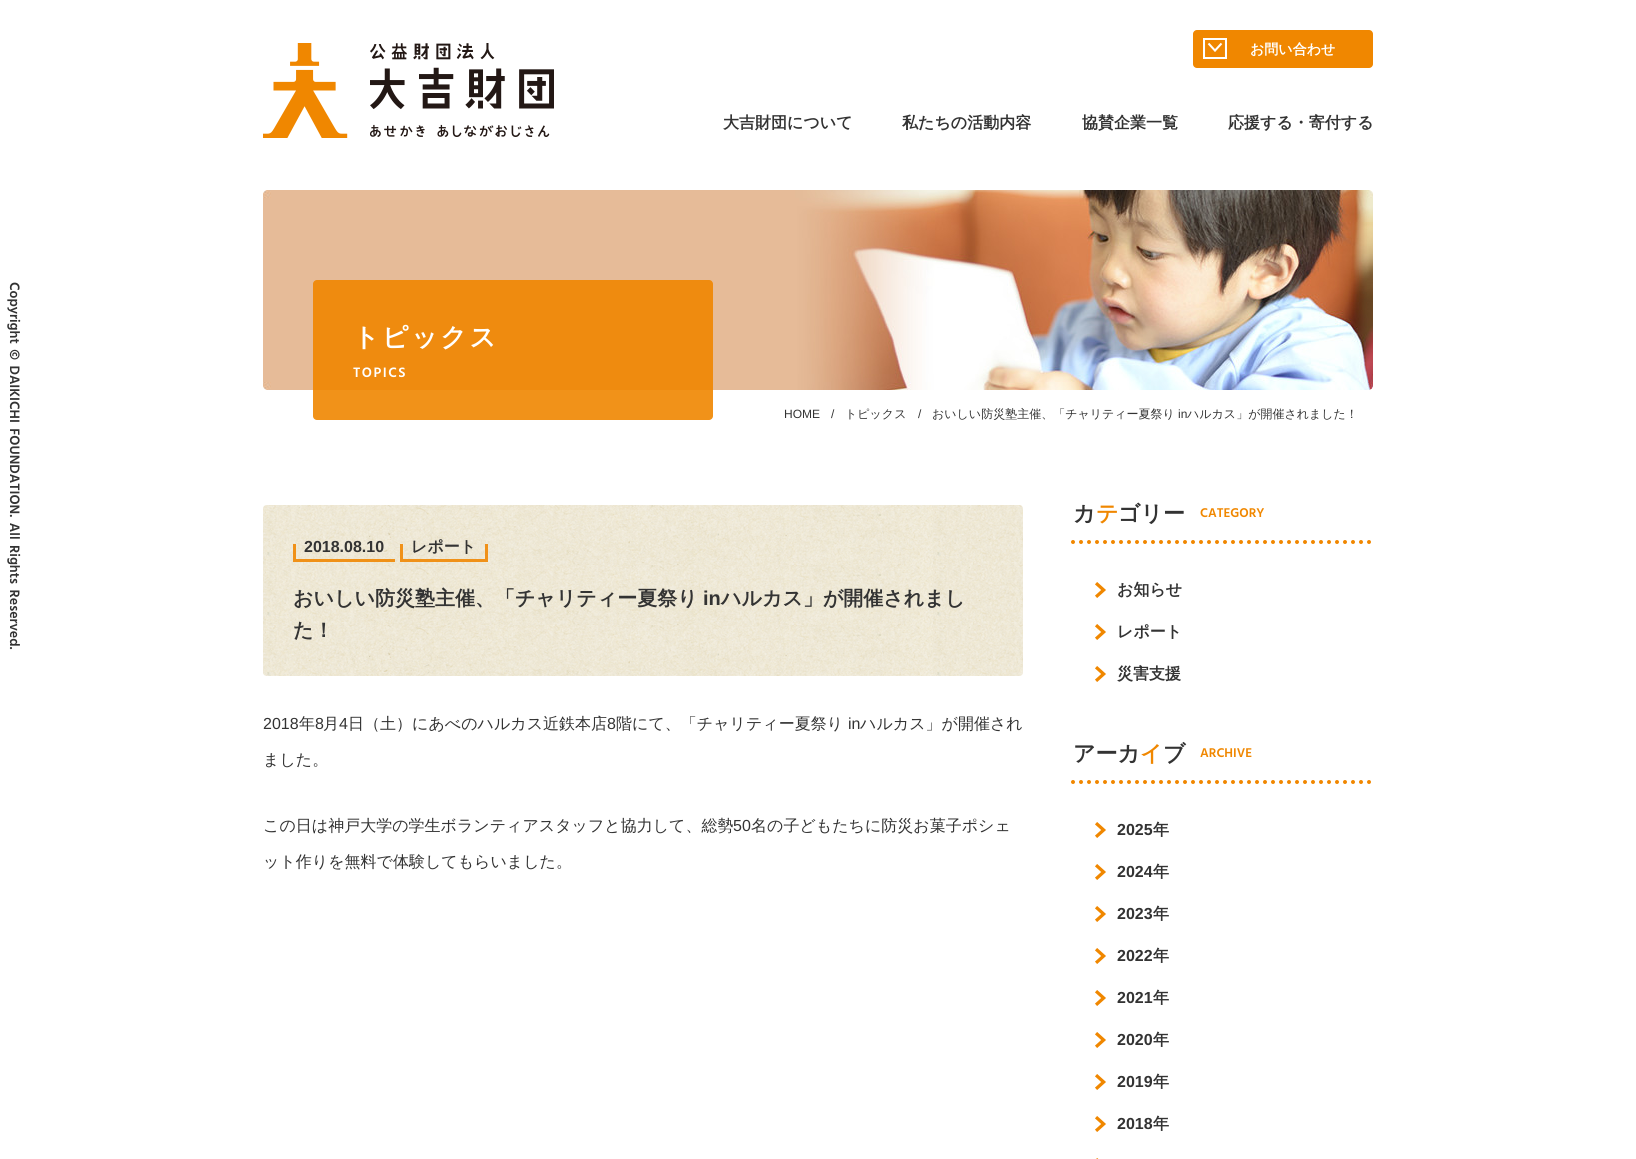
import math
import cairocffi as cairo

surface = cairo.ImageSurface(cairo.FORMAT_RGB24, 1636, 1159)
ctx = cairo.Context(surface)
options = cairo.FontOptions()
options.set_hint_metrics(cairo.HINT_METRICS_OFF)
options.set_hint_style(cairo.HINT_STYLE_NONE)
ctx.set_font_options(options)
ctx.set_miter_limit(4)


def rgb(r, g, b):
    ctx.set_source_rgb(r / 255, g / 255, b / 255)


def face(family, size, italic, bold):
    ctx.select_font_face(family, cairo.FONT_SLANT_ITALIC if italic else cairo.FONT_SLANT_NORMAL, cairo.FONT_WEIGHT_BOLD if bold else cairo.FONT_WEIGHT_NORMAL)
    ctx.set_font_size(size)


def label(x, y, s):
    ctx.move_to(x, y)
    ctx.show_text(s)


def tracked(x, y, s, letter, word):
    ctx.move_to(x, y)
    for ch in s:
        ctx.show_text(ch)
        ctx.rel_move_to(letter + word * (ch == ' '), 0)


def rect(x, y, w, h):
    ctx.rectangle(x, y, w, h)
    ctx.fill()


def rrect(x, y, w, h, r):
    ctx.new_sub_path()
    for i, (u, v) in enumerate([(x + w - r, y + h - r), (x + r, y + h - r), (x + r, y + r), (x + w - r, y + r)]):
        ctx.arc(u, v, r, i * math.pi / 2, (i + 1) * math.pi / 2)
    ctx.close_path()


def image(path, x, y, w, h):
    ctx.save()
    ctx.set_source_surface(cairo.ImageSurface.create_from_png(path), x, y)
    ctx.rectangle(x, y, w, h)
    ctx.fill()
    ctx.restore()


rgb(255, 255, 255)
ctx.paint()
image('image0.png', 263, 43, 291, 95)
rgb(240, 135, 0)
rrect(1193, 30, 180, 38, 4)
ctx.fill()
image('image1.png', 1203, 38, 24, 21)
face('WenQuanYi Zen Hei', 14, 0, 1)
rgb(255, 255, 255)
label(1250, 54, 'お問い合わせ')
face('WenQuanYi Zen Hei', 16, 0, 1)
rgb(51, 51, 51)
label(723, 128, '大吉財団について')
label(902, 128, '私たちの活動内容')
label(1082, 128, '協賛企業一覧')
label(1228, 128, '応援する・寄付する')
face('Hind SemiBold', 14, 0, 0)
ctx.save()
ctx.translate(10, 282)
ctx.rotate(90 * math.pi / 180)
tracked(0, 0, 'Copyright © DAIKICHI FOUNDATION. All Rights Reserved.', 0, 2)
ctx.restore()
image('image2.png', 263, 190, 1110, 200)
ctx.set_source_rgba(0.941, 0.529, 0, 0.9)
rrect(313, 280, 400, 140, 4)
ctx.fill()
face('WenQuanYi Zen Hei', 26, 0, 1)
rgb(255, 255, 255)
tracked(353, 346, 'トピックス', 2.5, 0)
face('Hind SemiBold', 14, 0, 0)
tracked(353, 377, 'TOPICS', 1.5, 0)
face('Liberation Sans', 12, 0, 0)
rgb(51, 51, 51)
label(784, 418, 'HOME')
label(831, 418, '/')
face('WenQuanYi Zen Hei Medium', 12, 0, 0)
label(845, 418, 'トピックス')
face('Liberation Sans', 12, 0, 0)
label(918, 418, '/')
face('WenQuanYi Zen Hei Medium', 12, 0, 0)
label(932, 418, 'おいしい防災塾主催、「チャリティー夏祭り')
face('Liberation Sans', 12, 0, 0)
label(1178, 418, 'in')
face('WenQuanYi Zen Hei Medium', 12, 0, 0)
label(1187, 418, 'ハルカス」が開催されました！')
image('image3.png', 263, 505, 760, 171)
rgb(240, 145, 24)
rect(293, 559, 102, 3)
rect(293, 544, 3, 15)
face('Liberation Sans', 16, 0, 1)
rgb(51, 51, 51)
label(304, 552, '2018.08.10')
rgb(240, 145, 24)
rect(400, 559, 88, 3)
rect(400, 544, 3, 15)
face('WenQuanYi Zen Hei', 16, 0, 1)
rgb(51, 51, 51)
label(411, 552, 'レポート')
rgb(240, 145, 24)
rect(485, 544, 3, 15)
face('WenQuanYi Zen Hei', 20, 0, 1)
rgb(51, 51, 51)
label(293, 605, 'おいしい防災塾主催、「チャリティー夏祭り')
face('Liberation Sans', 20, 0, 1)
label(703, 605, 'in')
face('WenQuanYi Zen Hei', 20, 0, 1)
label(721, 605, 'ハルカス」が開催されまし')
label(293, 637, 'た！')
face('Liberation Sans', 16, 0, 0)
label(263, 729, '2018')
face('WenQuanYi Zen Hei Medium', 16, 0, 0)
label(299, 729, '年')
face('Liberation Sans', 16, 0, 0)
label(315, 729, '8')
face('WenQuanYi Zen Hei Medium', 16, 0, 0)
label(323, 729, '月')
face('Liberation Sans', 16, 0, 0)
label(339, 729, '4')
face('WenQuanYi Zen Hei Medium', 16, 0, 0)
label(348, 729, '日（土）にあべのハルカス近鉄本店')
face('Liberation Sans', 16, 0, 0)
label(607, 729, '8')
face('WenQuanYi Zen Hei Medium', 16, 0, 0)
label(616, 729, '階にて、「チャリティー夏祭り')
face('Liberation Sans', 16, 0, 0)
label(848, 729, 'in')
face('WenQuanYi Zen Hei Medium', 16, 0, 0)
label(860, 729, 'ハルカス」が開催され')
label(263, 765, 'ました。')
label(263, 831, 'この日は神戸大学の学生ボランティアスタッフと協力して、総勢')
face('Liberation Sans', 16, 0, 0)
label(733, 831, '50')
face('WenQuanYi Zen Hei Medium', 16, 0, 0)
label(751, 831, '名の子どもたちに防災お菓子ポシェ')
label(263, 867, 'ット作りを無料で体験してもらいました。')
ctx.new_path()
ctx.move_to(1073, 542)
ctx.line_to(1373, 542)
rgb(240, 135, 0)
ctx.set_line_width(4)
ctx.set_line_cap(cairo.LINE_CAP_ROUND)
ctx.set_dash([0, 8])
ctx.stroke()
face('WenQuanYi Zen Hei', 22, 0, 1)
rgb(51, 51, 51)
label(1073, 521, 'カ')
rgb(240, 135, 0)
label(1096, 521, 'テ')
rgb(51, 51, 51)
label(1118, 521, 'ゴリー')
face('Hind SemiBold', 13, 0, 0)
rgb(240, 135, 0)
label(1200, 517, 'CATEGORY')
image('image4.png', 1095, 582, 11, 16)
face('WenQuanYi Zen Hei', 16, 0, 1)
rgb(51, 51, 51)
label(1117, 595, 'お知らせ')
image('image4.png', 1095, 624, 11, 16)
label(1117, 637, 'レポート')
image('image4.png', 1095, 666, 11, 16)
label(1117, 679, '災害支援')
ctx.new_path()
ctx.move_to(1073, 782)
ctx.line_to(1373, 782)
rgb(240, 135, 0)
ctx.stroke()
face('WenQuanYi Zen Hei', 22, 0, 1)
rgb(51, 51, 51)
label(1073, 761, 'アーカ')
rgb(240, 135, 0)
label(1140, 761, 'イ')
rgb(51, 51, 51)
label(1163, 761, 'ブ')
face('Hind SemiBold', 13, 0, 0)
rgb(240, 135, 0)
label(1200, 757, 'ARCHIVE')
image('image4.png', 1095, 822, 11, 16)
face('Liberation Sans', 16, 0, 1)
rgb(51, 51, 51)
label(1117, 835, '2025')
face('WenQuanYi Zen Hei', 16, 0, 1)
label(1153, 835, '年')
image('image4.png', 1095, 864, 11, 16)
face('Liberation Sans', 16, 0, 1)
label(1117, 877, '2024')
face('WenQuanYi Zen Hei', 16, 0, 1)
label(1153, 877, '年')
image('image4.png', 1095, 906, 11, 16)
face('Liberation Sans', 16, 0, 1)
label(1117, 919, '2023')
face('WenQuanYi Zen Hei', 16, 0, 1)
label(1153, 919, '年')
image('image4.png', 1095, 948, 11, 16)
face('Liberation Sans', 16, 0, 1)
label(1117, 961, '2022')
face('WenQuanYi Zen Hei', 16, 0, 1)
label(1153, 961, '年')
image('image4.png', 1095, 990, 11, 16)
face('Liberation Sans', 16, 0, 1)
label(1117, 1003, '2021')
face('WenQuanYi Zen Hei', 16, 0, 1)
label(1153, 1003, '年')
image('image4.png', 1095, 1032, 11, 16)
face('Liberation Sans', 16, 0, 1)
label(1117, 1045, '2020')
face('WenQuanYi Zen Hei', 16, 0, 1)
label(1153, 1045, '年')
image('image4.png', 1095, 1074, 11, 16)
face('Liberation Sans', 16, 0, 1)
label(1117, 1087, '2019')
face('WenQuanYi Zen Hei', 16, 0, 1)
label(1153, 1087, '年')
image('image4.png', 1095, 1116, 11, 16)
face('Liberation Sans', 16, 0, 1)
label(1117, 1129, '2018')
face('WenQuanYi Zen Hei', 16, 0, 1)
label(1153, 1129, '年')
image('image5.png', 1096, 1158, 3, 1)
surface.write_to_png('render.png')
